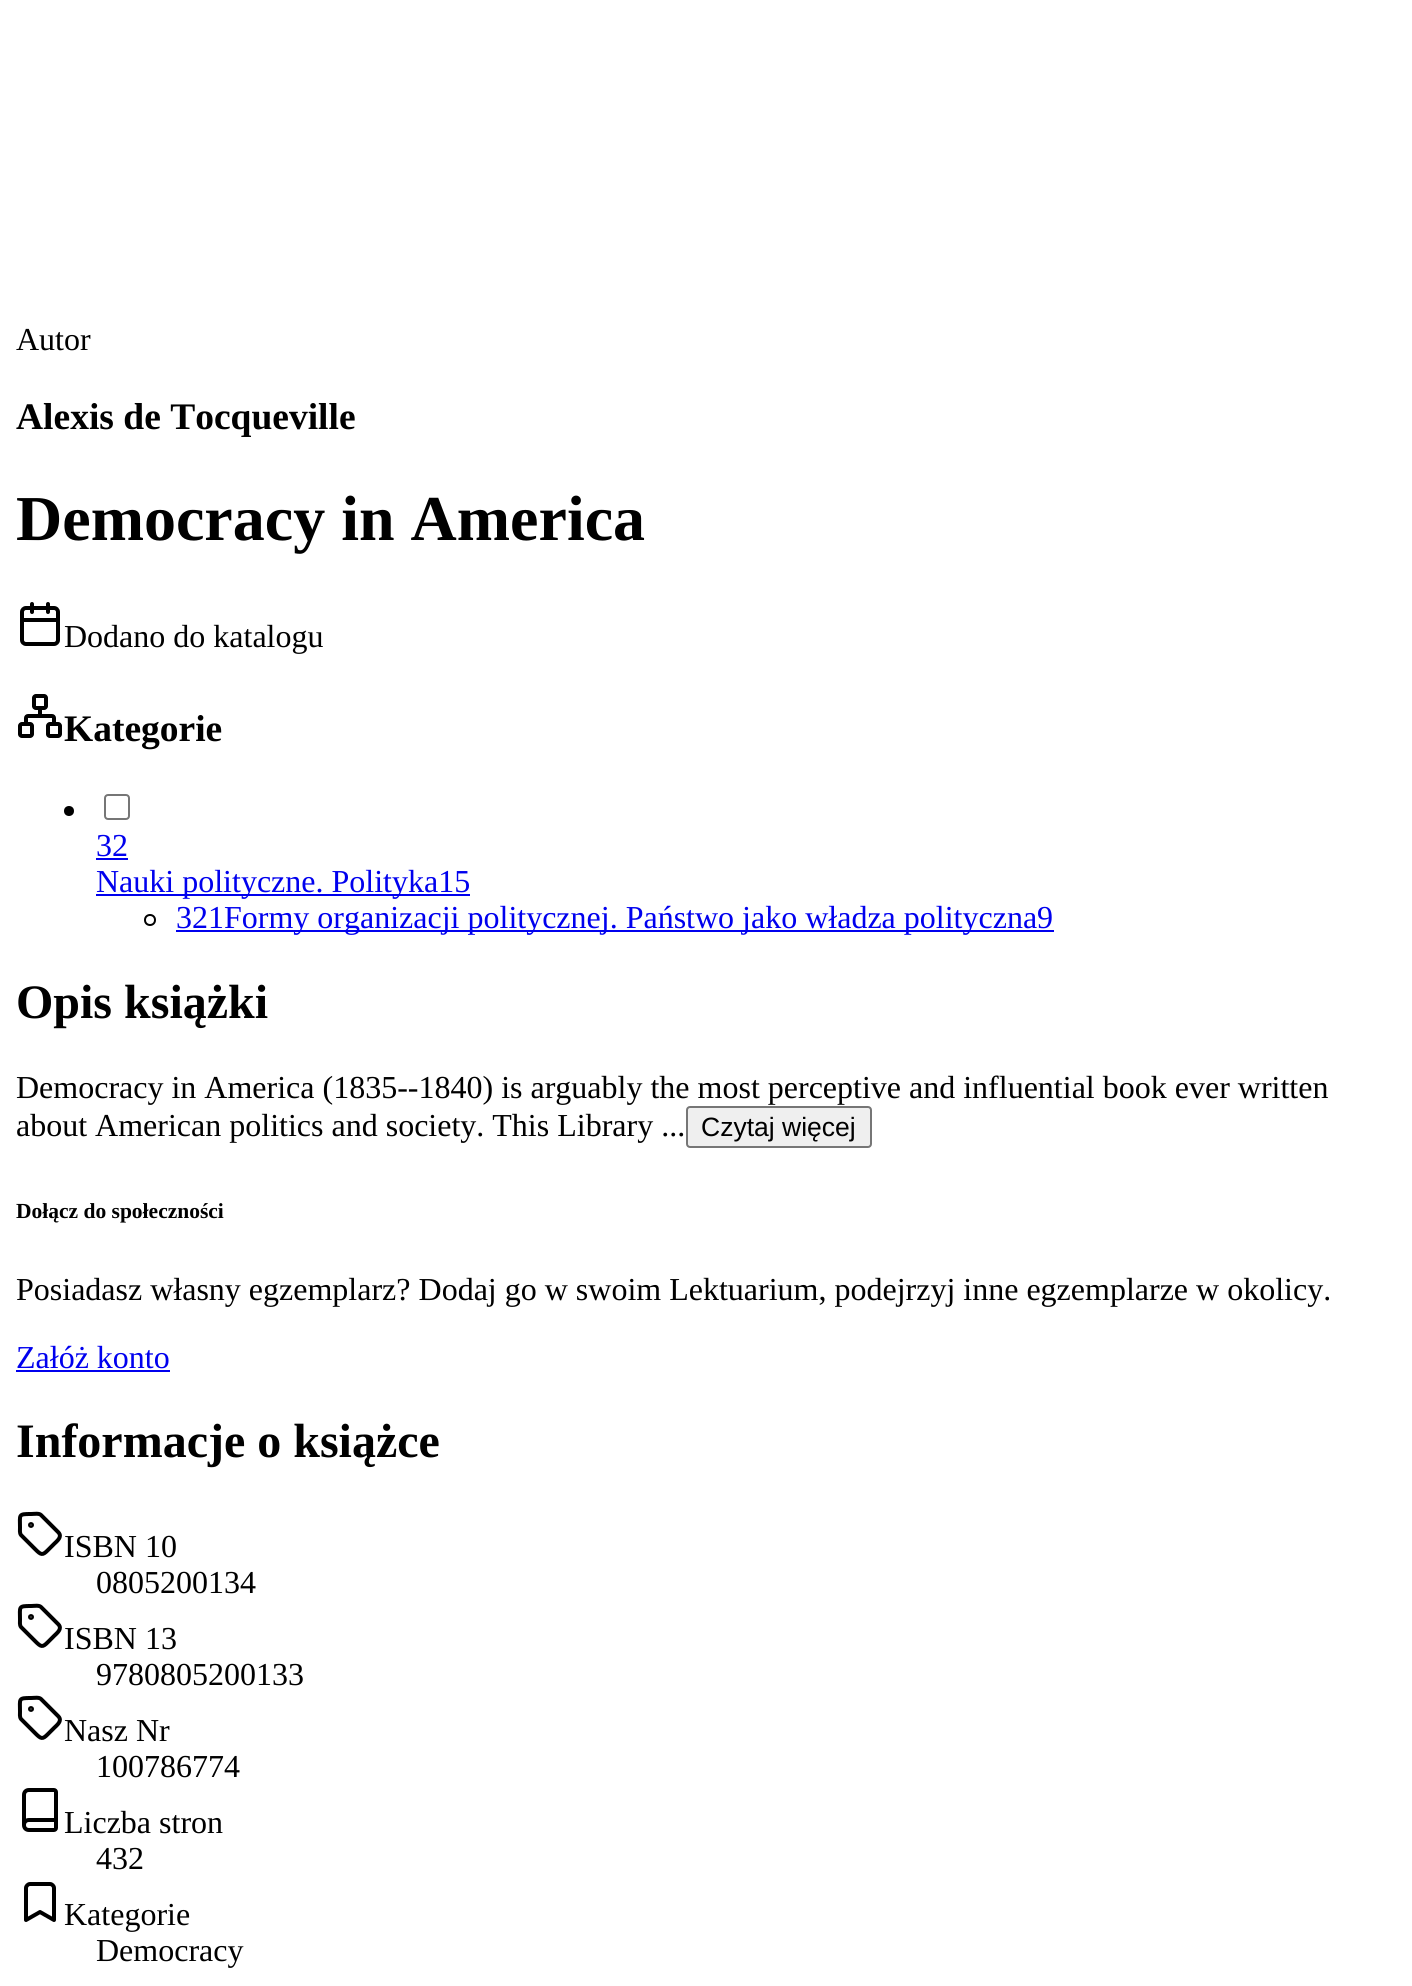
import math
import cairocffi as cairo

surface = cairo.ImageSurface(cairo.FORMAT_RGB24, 1412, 1986)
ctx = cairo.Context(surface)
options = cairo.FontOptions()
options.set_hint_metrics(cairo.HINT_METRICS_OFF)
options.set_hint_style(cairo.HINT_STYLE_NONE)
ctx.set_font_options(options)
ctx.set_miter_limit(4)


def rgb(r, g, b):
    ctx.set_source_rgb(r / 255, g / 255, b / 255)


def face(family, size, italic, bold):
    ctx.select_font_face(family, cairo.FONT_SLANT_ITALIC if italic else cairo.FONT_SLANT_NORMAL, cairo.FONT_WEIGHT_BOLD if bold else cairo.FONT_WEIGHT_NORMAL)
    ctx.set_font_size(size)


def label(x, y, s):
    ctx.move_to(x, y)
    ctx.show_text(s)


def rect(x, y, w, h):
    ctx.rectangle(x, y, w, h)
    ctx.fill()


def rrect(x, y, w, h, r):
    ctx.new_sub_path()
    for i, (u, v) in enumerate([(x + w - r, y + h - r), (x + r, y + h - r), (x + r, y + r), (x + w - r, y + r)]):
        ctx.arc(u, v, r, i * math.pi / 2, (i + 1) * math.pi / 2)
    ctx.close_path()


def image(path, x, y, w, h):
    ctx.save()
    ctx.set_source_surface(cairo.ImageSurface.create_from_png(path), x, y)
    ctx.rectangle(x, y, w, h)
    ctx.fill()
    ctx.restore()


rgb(255, 255, 255)
ctx.paint()
face('Liberation Serif', 32, 0, 0)
rgb(0, 0, 0)
label(16, 350, 'Autor')
face('Liberation Serif', 37.5, 0, 1)
label(16, 429, 'Alexis de Tocqueville')
face('Liberation Serif', 64, 0, 1)
label(16, 540, 'Democracy in America')
ctx.new_path()
ctx.move_to(32, 604)
ctx.line_to(32, 612)
ctx.move_to(48, 604)
ctx.line_to(48, 612)
ctx.set_line_width(4)
ctx.set_line_cap(cairo.LINE_CAP_ROUND)
ctx.set_line_join(cairo.LINE_JOIN_ROUND)
ctx.stroke()
rrect(22, 608, 36, 36, 4)
ctx.set_line_cap(cairo.LINE_CAP_BUTT)
ctx.set_line_join(cairo.LINE_JOIN_MITER)
ctx.stroke()
ctx.new_path()
ctx.move_to(22, 620)
ctx.line_to(58, 620)
ctx.set_line_cap(cairo.LINE_CAP_ROUND)
ctx.set_line_join(cairo.LINE_JOIN_ROUND)
ctx.stroke()
face('Liberation Serif', 32, 0, 0)
label(64, 647, 'Dodano do katalogu')
image('image0.png', 18, 694, 44, 44)
face('Liberation Serif', 37.5, 0, 1)
label(64, 741, 'Kategorie')
ctx.new_path()
ctx.arc(69, 811, 5, 0, 2 * math.pi)
ctx.fill()
rrect(105, 795, 24, 24, 3)
rgb(118, 118, 118)
ctx.set_line_width(2)
ctx.set_line_cap(cairo.LINE_CAP_BUTT)
ctx.set_line_join(cairo.LINE_JOIN_MITER)
ctx.stroke()
face('Liberation Serif', 32, 0, 0)
rgb(0, 0, 238)
label(96, 856, '32')
rect(96, 858, 32, 2)
rect(96, 894, 374, 2)
label(96, 892, 'Nauki polityczne. Polityka15')
ctx.new_path()
ctx.arc(150, 920, 5, 0, 2 * math.pi)
rgb(0, 0, 0)
ctx.stroke()
rgb(0, 0, 238)
rect(176, 930, 878, 2)
label(176, 928, '321Formy organizacji politycznej. Państwo jako władza polityczna9')
face('Liberation Serif', 48, 0, 1)
rgb(0, 0, 0)
label(16, 1018, 'Opis książki')
face('Liberation Serif', 32, 0, 0)
label(16, 1098, 'Democracy in America (1835--1840) is arguably the most perceptive and influential book ever written')
label(16, 1136, 'about American politics and society. This Library ...')
rgb(239, 239, 239)
rrect(687, 1107, 184, 40, 3)
ctx.fill_preserve()
rgb(118, 118, 118)
ctx.stroke()
face('Liberation Sans', 26.5, 0, 0)
rgb(0, 0, 0)
label(701, 1136, 'Czytaj więcej')
face('Liberation Serif', 21.5, 0, 1)
label(16, 1218, 'Dołącz do społeczności')
face('Liberation Serif', 32, 0, 0)
label(16, 1300, 'Posiadasz własny egzemplarz? Dodaj go w swoim Lektuarium, podejrzyj inne egzemplarze w okolicy.')
rgb(0, 0, 238)
label(16, 1368, 'Załóż konto')
rect(16, 1370, 154, 2)
face('Liberation Serif', 48, 0, 1)
rgb(0, 0, 0)
label(16, 1457, 'Informacje o książce')
ctx.new_path()
ctx.move_to(41, 1515)
ctx.curve_to(39, 1513, 34, 1514, 31, 1514)
ctx.curve_to(18, 1514, 20, 1514.5, 20, 1527.5)
ctx.curve_to(20, 1530, 19.5, 1533, 21, 1535)
ctx.line_to(35.5, 1549.5)
ctx.curve_to(41, 1555, 42.5, 1555.5, 47.5, 1550.5)
ctx.line_to(54, 1544)
ctx.curve_to(57, 1541, 62.5, 1537, 58.5, 1532.5)
ctx.close_path()
ctx.set_line_width(4)
ctx.set_line_cap(cairo.LINE_CAP_ROUND)
ctx.set_line_join(cairo.LINE_JOIN_ROUND)
ctx.stroke()
ctx.arc(31, 1525, 1, 0, 2 * math.pi)
ctx.fill_preserve()
ctx.set_line_cap(cairo.LINE_CAP_BUTT)
ctx.set_line_join(cairo.LINE_JOIN_MITER)
ctx.stroke()
face('Liberation Serif', 32, 0, 0)
label(64, 1557, 'ISBN 10')
label(96, 1593, '0805200134')
ctx.new_path()
ctx.move_to(41, 1607)
ctx.curve_to(39, 1605, 34, 1606, 31, 1606)
ctx.curve_to(18, 1606, 20, 1606.5, 20, 1619.5)
ctx.curve_to(20, 1622, 19.5, 1625, 21, 1627)
ctx.line_to(35.5, 1641.5)
ctx.curve_to(41, 1647, 42.5, 1647.5, 47.5, 1642.5)
ctx.line_to(54, 1636)
ctx.curve_to(57, 1633, 62.5, 1629, 58.5, 1624.5)
ctx.close_path()
ctx.set_line_cap(cairo.LINE_CAP_ROUND)
ctx.set_line_join(cairo.LINE_JOIN_ROUND)
ctx.stroke()
ctx.arc(31, 1617, 1, 0, 2 * math.pi)
ctx.fill_preserve()
ctx.set_line_cap(cairo.LINE_CAP_BUTT)
ctx.set_line_join(cairo.LINE_JOIN_MITER)
ctx.stroke()
label(64, 1649, 'ISBN 13')
label(96, 1685, '9780805200133')
ctx.new_path()
ctx.move_to(41, 1699)
ctx.curve_to(39, 1697, 34, 1698, 31, 1698)
ctx.curve_to(18, 1698, 20, 1698.5, 20, 1711.5)
ctx.curve_to(20, 1714, 19.5, 1717, 21, 1719)
ctx.line_to(35.5, 1733.5)
ctx.curve_to(41, 1739, 42.5, 1739.5, 47.5, 1734.5)
ctx.line_to(54, 1728)
ctx.curve_to(57, 1725, 62.5, 1721, 58.5, 1716.5)
ctx.close_path()
ctx.set_line_cap(cairo.LINE_CAP_ROUND)
ctx.set_line_join(cairo.LINE_JOIN_ROUND)
ctx.stroke()
ctx.arc(31, 1709, 1, 0, 2 * math.pi)
ctx.fill_preserve()
ctx.set_line_cap(cairo.LINE_CAP_BUTT)
ctx.set_line_join(cairo.LINE_JOIN_MITER)
ctx.stroke()
label(64, 1741, 'Nasz Nr')
label(96, 1777, '100786774')
ctx.new_path()
ctx.move_to(24, 1825)
ctx.line_to(24, 1795)
ctx.curve_to(24, 1792, 26, 1790, 29, 1790)
ctx.line_to(54, 1790)
ctx.curve_to(55, 1790, 56, 1791, 56, 1792)
ctx.line_to(56, 1828)
ctx.curve_to(56, 1829, 55, 1830, 54, 1830)
ctx.line_to(29, 1830)
ctx.curve_to(26, 1830, 24, 1828, 24, 1825)
ctx.curve_to(24, 1822, 26, 1820, 29, 1820)
ctx.line_to(56, 1820)
ctx.set_line_cap(cairo.LINE_CAP_ROUND)
ctx.set_line_join(cairo.LINE_JOIN_ROUND)
ctx.stroke()
label(64, 1833, 'Liczba stron')
label(96, 1869, '432')
ctx.new_path()
ctx.move_to(54, 1920)
ctx.line_to(40, 1912)
ctx.line_to(26, 1920)
ctx.line_to(26, 1888)
ctx.curve_to(26, 1886, 28, 1884, 30, 1884)
ctx.line_to(50, 1884)
ctx.curve_to(52, 1884, 54, 1886, 54, 1888)
ctx.close_path()
ctx.stroke()
label(64, 1925, 'Kategorie')
label(96, 1961, 'Democracy')
surface.write_to_png('render.png')
